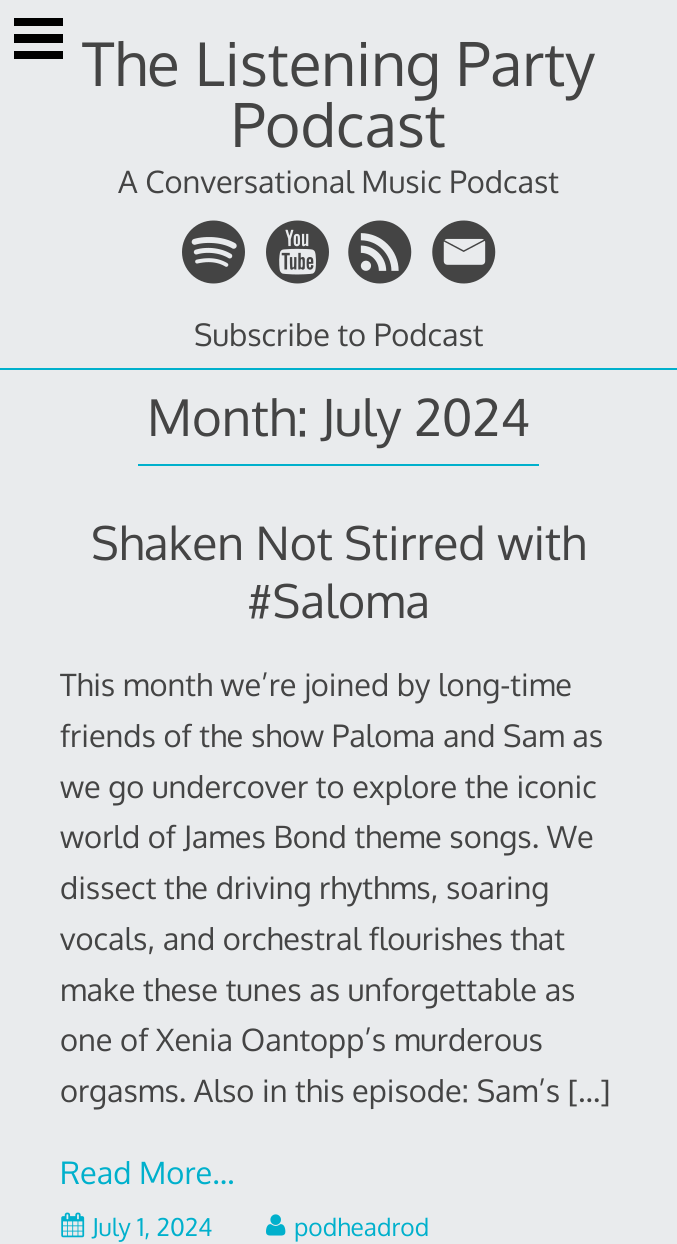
import math
import cairocffi as cairo

surface = cairo.ImageSurface(cairo.FORMAT_RGB24, 677, 1244)
ctx = cairo.Context(surface)
options = cairo.FontOptions()
options.set_hint_metrics(cairo.HINT_METRICS_OFF)
options.set_hint_style(cairo.HINT_STYLE_NONE)
ctx.set_font_options(options)
ctx.set_miter_limit(4)


def rgb(r, g, b):
    ctx.set_source_rgb(r / 255, g / 255, b / 255)


def face(family, size, italic, bold):
    ctx.select_font_face(family, cairo.FONT_SLANT_ITALIC if italic else cairo.FONT_SLANT_NORMAL, cairo.FONT_WEIGHT_BOLD if bold else cairo.FONT_WEIGHT_NORMAL)
    ctx.set_font_size(size)


def label(x, y, s):
    ctx.move_to(x, y)
    ctx.show_text(s)


def rect(x, y, w, h):
    ctx.rectangle(x, y, w, h)
    ctx.fill()


def image(path, x, y, w, h):
    ctx.save()
    ctx.set_source_surface(cairo.ImageSurface.create_from_png(path), x, y)
    ctx.rectangle(x, y, w, h)
    ctx.fill()
    ctx.restore()


rgb(233, 235, 237)
ctx.paint()
rgb(0, 0, 0)
rect(14, 18, 49, 8)
rect(14, 34, 49, 9)
rect(14, 51, 49, 8)
rgb(0, 176, 204)
rect(0, 368, 677, 2)
face('Oxygen', 60.25, 0, 0)
rgb(68, 68, 68)
label(82, 86, 'The Listening Party')
label(231, 147, 'Podcast')
face('Oxygen', 30.75, 0, 0)
label(118, 193, 'A Conversational Music Podcast')
image('image0.png', 182, 220, 63, 64)
image('image1.png', 266, 220, 63, 64)
image('image2.png', 348, 220, 64, 64)
image('image3.png', 432, 220, 64, 64)
label(194, 346, 'Subscribe to Podcast')
rgb(0, 176, 204)
rect(138, 464, 401, 2)
face('Oxygen', 50.75, 0, 0)
rgb(68, 68, 68)
label(147, 436, 'Month: July 2024')
face('Oxygen', 46.25, 0, 0)
label(91, 560, 'Shaken Not Stirred with')
label(247, 618, '#Saloma')
face('Oxygen', 30.75, 0, 0)
label(60, 696, 'This month we’re joined by long-time')
label(60, 747, 'friends of the show Paloma and Sam as')
label(60, 798, 'we go undercover to explore the iconic')
label(60, 848, 'world of James Bond theme songs. We')
label(60, 899, 'dissect the driving rhythms, soaring')
label(60, 950, 'vocals, and orchestral flourishes that')
label(60, 1001, 'make these tunes as unforgettable as')
label(60, 1051, 'one of Xenia Oantopp’s murderous')
label(60, 1102, 'orgasms. Also in this episode: Sam’s […]')
rgb(0, 176, 204)
label(60, 1184, 'Read More…')
image('image4.png', 61, 1212, 24, 26)
face('Oxygen', 24.5, 0, 0)
label(92, 1236, 'July 1, 2024')
image('image5.png', 266, 1214, 20, 22)
label(294, 1236, 'podheadrod')
surface.write_to_png('render.png')
